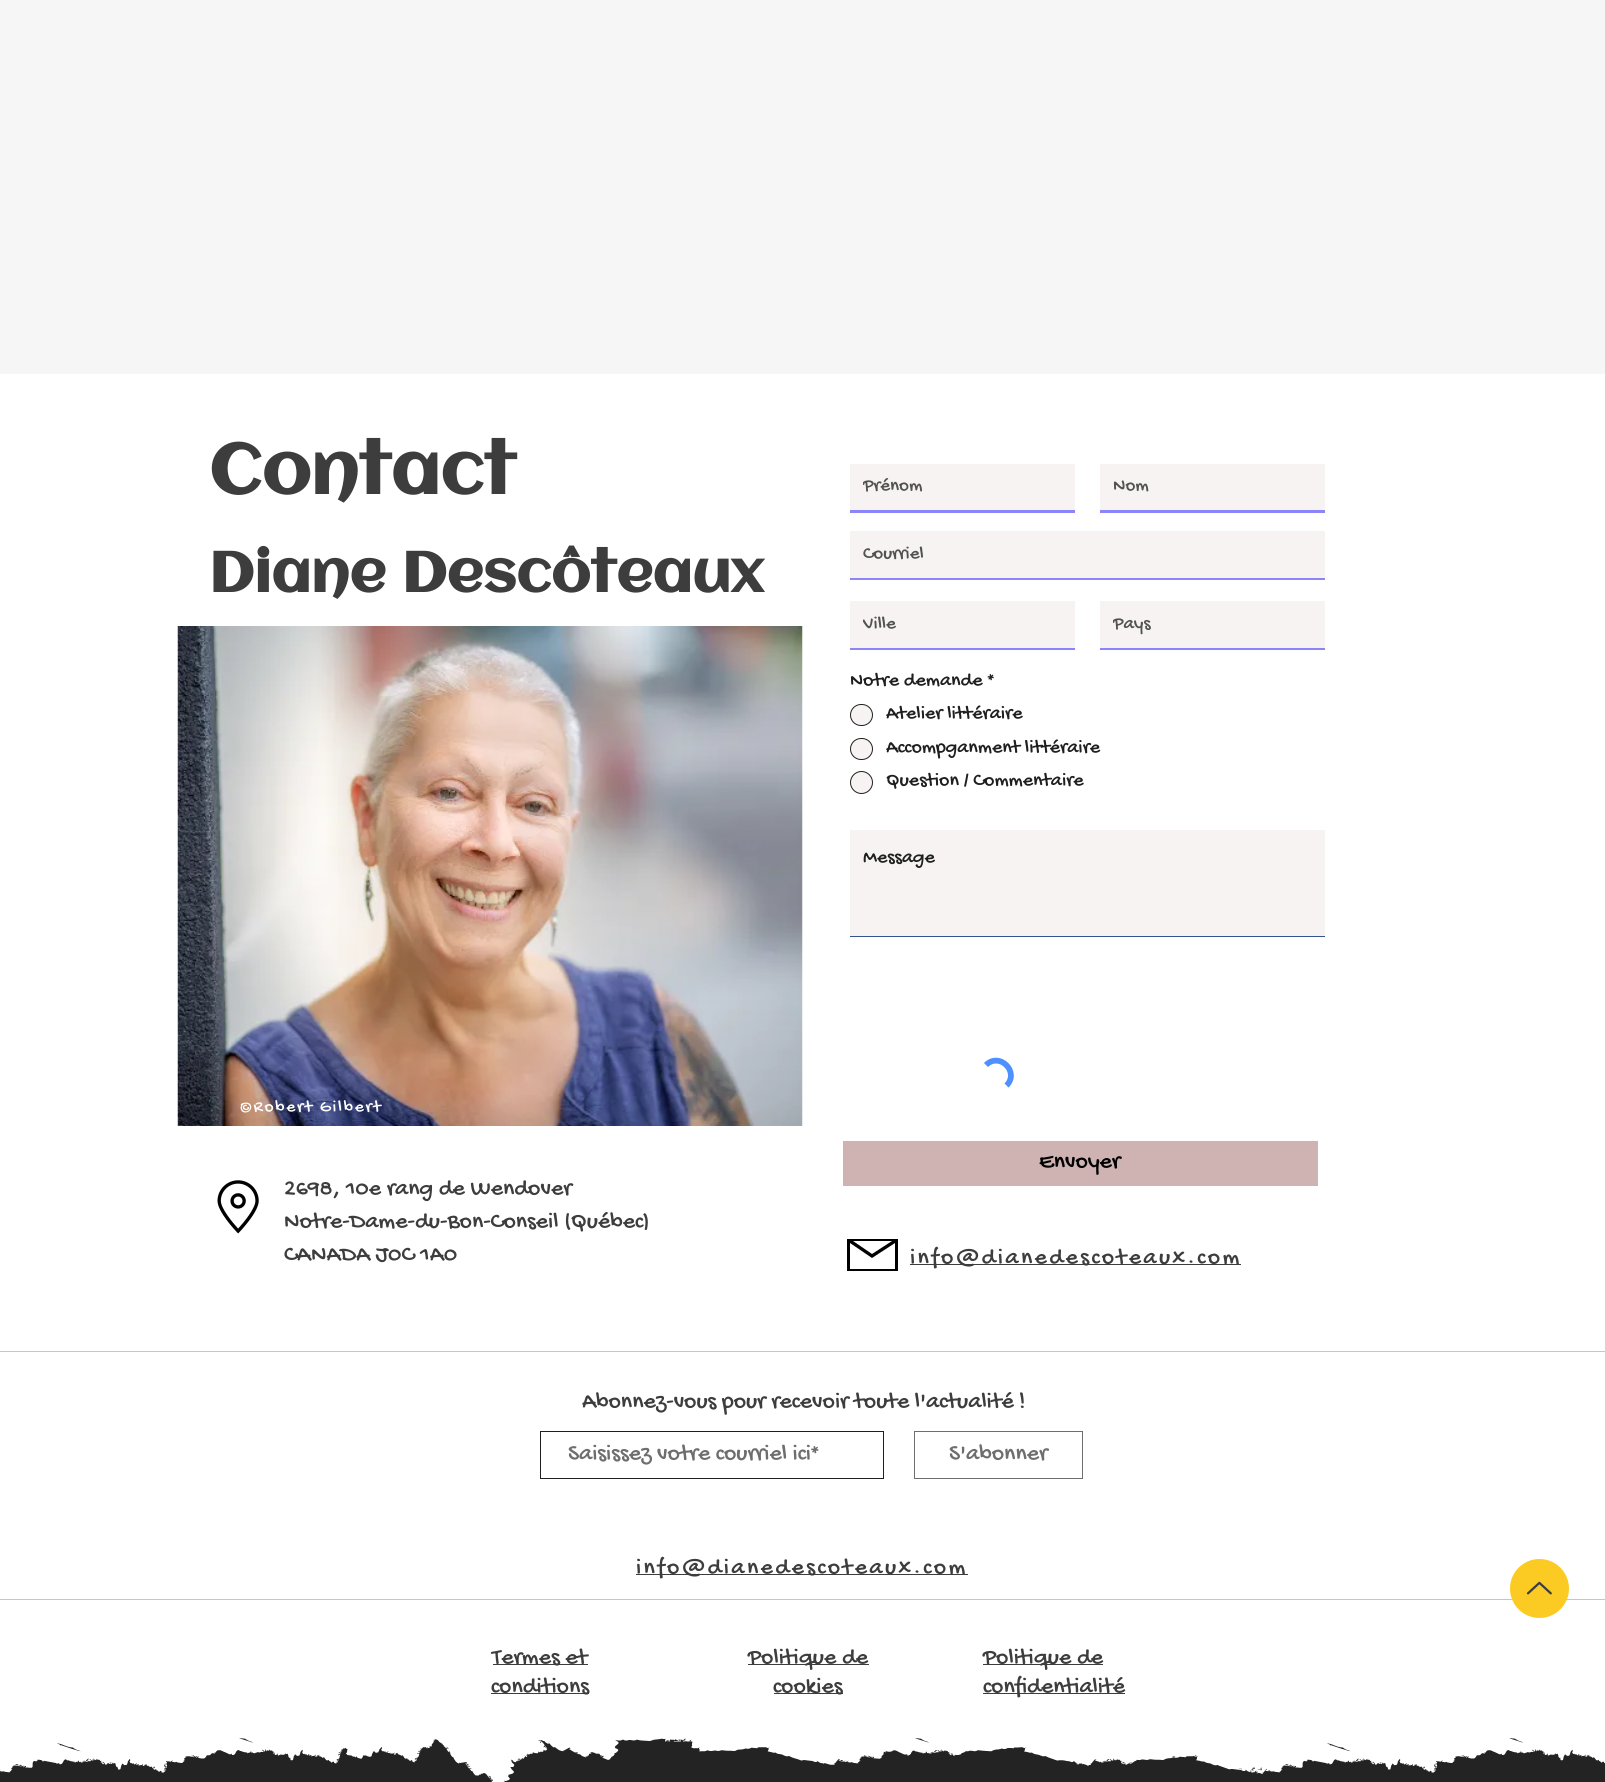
import math
import cairocffi as cairo

surface = cairo.ImageSurface(cairo.FORMAT_RGB24, 1605, 1782)
ctx = cairo.Context(surface)
options = cairo.FontOptions()
options.set_hint_metrics(cairo.HINT_METRICS_OFF)
options.set_hint_style(cairo.HINT_STYLE_NONE)
ctx.set_font_options(options)
ctx.set_miter_limit(4)


def rgb(r, g, b):
    ctx.set_source_rgb(r / 255, g / 255, b / 255)


def face(family, size, italic, bold):
    ctx.select_font_face(family, cairo.FONT_SLANT_ITALIC if italic else cairo.FONT_SLANT_NORMAL, cairo.FONT_WEIGHT_BOLD if bold else cairo.FONT_WEIGHT_NORMAL)
    ctx.set_font_size(size)


def label(x, y, s):
    ctx.move_to(x, y)
    ctx.show_text(s)


def tracked(x, y, s, letter, word):
    ctx.move_to(x, y)
    for ch in s:
        ctx.show_text(ch)
        ctx.rel_move_to(letter + word * (ch == ' '), 0)


def rect(x, y, w, h):
    ctx.rectangle(x, y, w, h)
    ctx.fill()


def rrect(x, y, w, h, r):
    ctx.new_sub_path()
    for i, (u, v) in enumerate([(x + w - r, y + h - r), (x + r, y + h - r), (x + r, y + r), (x + w - r, y + r)]):
        ctx.arc(u, v, r, i * math.pi / 2, (i + 1) * math.pi / 2)
    ctx.close_path()


def image(path, x, y, w, h):
    ctx.save()
    ctx.set_source_surface(cairo.ImageSurface.create_from_png(path), x, y)
    ctx.rectangle(x, y, w, h)
    ctx.fill()
    ctx.restore()


rgb(255, 255, 255)
ctx.paint()
rgb(246, 246, 246)
rect(0, 0, 1605, 374)
face('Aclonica', 70, 0, 1)
rgb(61, 61, 61)
label(209, 494, 'Contact')
face('Aclonica', 56.25, 0, 1)
label(209, 592, 'Diane Descôteaux')
image('image0.png', 177, 626, 626, 500)
face('Gochi Hand', 17.5, 0, 0)
rgb(255, 255, 255)
tracked(240, 1111, '©Robert Gilbert', 1.75, 0)
image('image1.png', 217, 1180, 42, 54)
face('Gochi Hand', 23.75, 0, 0)
rgb(61, 61, 61)
label(284, 1194, '2698, 10e rang de Wendover')
label(284, 1227, 'Notre-Dame-du-Bon-Conseil (Québec)')
label(284, 1260, 'CANADA J0C 1A0')
rgb(140, 132, 250)
rect(850, 510, 225, 3)
rgb(247, 243, 243)
rect(850, 464, 225, 46)
ctx.save()
ctx.rectangle(863, 474, 208, 26)
ctx.clip()
face('Gochi Hand', 19, 0, 0)
rgb(82, 82, 82)
label(863, 490, 'Prénom')
ctx.restore()
rgb(140, 132, 250)
rect(1100, 510, 225, 3)
rgb(247, 243, 243)
rect(1100, 464, 225, 46)
face('Gochi Hand', 19, 0, 0)
rgb(82, 82, 82)
label(1113, 490, 'Nom')
rgb(140, 132, 250)
rect(850, 578, 475, 2)
rgb(247, 243, 243)
rect(850, 531, 475, 47)
rgb(82, 82, 82)
label(863, 558, 'Courriel')
rgb(140, 132, 250)
rect(850, 648, 225, 2)
rgb(247, 243, 243)
rect(850, 601, 225, 47)
ctx.save()
ctx.rectangle(863, 611, 208, 27)
ctx.clip()
rgb(82, 82, 82)
label(863, 628, 'Ville')
ctx.restore()
rgb(140, 132, 250)
rect(1100, 648, 225, 2)
rgb(247, 243, 243)
rect(1100, 601, 225, 47)
ctx.save()
ctx.rectangle(1113, 611, 208, 27)
ctx.clip()
rgb(82, 82, 82)
label(1113, 628, 'Pays')
ctx.restore()
face('Gochi Hand', 20, 0, 0)
rgb(31, 31, 31)
label(850, 685, 'Notre demande *')
rgb(247, 243, 243)
rrect(850.5, 704.5, 22, 21, 10.5)
ctx.fill_preserve()
rgb(31, 31, 31)
ctx.set_line_width(1)
ctx.stroke()
label(886, 718, 'Atelier littéraire')
rgb(247, 243, 243)
rrect(850.5, 738.5, 22, 21, 10.5)
ctx.fill_preserve()
rgb(31, 31, 31)
ctx.stroke()
label(886, 752, 'Accompganment littéraire')
rgb(247, 243, 243)
ctx.new_path()
ctx.arc(861.5, 782.5, 11, 0, 2 * math.pi)
ctx.fill_preserve()
rgb(31, 31, 31)
ctx.stroke()
label(886, 785, 'Question / Commentaire')
rgb(247, 243, 243)
rect(850, 830, 475, 106)
rgb(53, 84, 143)
rect(850, 936, 475, 1)
rgb(31, 31, 31)
label(863, 862, 'Message')
ctx.new_path()
ctx.move_to(986, 1065)
ctx.curve_to(999.5, 1051.5, 1020, 1072, 1006.5, 1085.5)
rgb(77, 144, 254)
ctx.set_line_width(5.8)
ctx.stroke()
rgb(207, 179, 179)
rect(843, 1141, 475, 45)
face('Gochi Hand', 23.75, 0, 0)
rgb(0, 0, 0)
label(1039, 1167, 'Envoyer')
rgb(0, 0, 1)
ctx.new_path()
ctx.move_to(847, 1239)
ctx.line_to(847, 1271)
ctx.line_to(898, 1271)
ctx.line_to(898, 1239)
ctx.close_path()
ctx.move_to(892, 1241)
ctx.line_to(872, 1254)
ctx.line_to(853, 1241)
ctx.close_path()
ctx.move_to(850, 1269)
ctx.line_to(850, 1243)
ctx.line_to(872, 1258)
ctx.line_to(895, 1243)
ctx.line_to(895, 1269)
ctx.close_path()
ctx.fill()
rgb(61, 61, 61)
rect(910, 1264, 331, 1)
tracked(910, 1263, 'info@dianedescoteaux.com', 2.4, 0)
rgb(251, 203, 36)
rect(0, 1351, 1605, 1)
rgb(61, 61, 61)
label(582, 1407, 'Abonnez-vous pour recevoir toute l\'actualité !')
ctx.rectangle(540.5, 1431.5, 343, 47)
rgb(31, 31, 31)
ctx.set_line_width(1)
ctx.stroke()
rgb(110, 110, 110)
label(568, 1459, 'Saisissez votre courriel ici*')
ctx.rectangle(914.5, 1431.5, 168, 47)
ctx.stroke()
label(949, 1459, 'S\'abonner')
rgb(61, 61, 61)
rect(636, 1574, 332, 1)
tracked(636, 1573, 'info@dianedescoteaux.com', 2.4, 0)
rgb(251, 203, 36)
rect(0, 1599, 1605, 1)
rgb(61, 61, 61)
rect(493, 1664, 95, 1)
label(492, 1663, 'Termes et')
rect(491, 1693, 98, 1)
label(491, 1692, 'conditions')
rect(748, 1664, 121, 1)
label(748, 1663, 'Politique de')
rect(774, 1693, 69, 1)
label(773, 1692, 'cookies')
rect(983, 1664, 120, 1)
label(983, 1663, 'Politique de')
rect(983, 1693, 142, 1)
label(983, 1692, 'confidentialité')
rgb(36, 35, 35)
rect(0, 1738, 1605, 44)
image('image2.png', 0, 1723, 1605, 59)
rgb(251, 203, 36)
ctx.arc(1539.5, 1588.5, 29.5, 0, 2 * math.pi)
ctx.fill()
image('image3.png', 1526, 1581, 26, 14)
surface.write_to_png('render.png')
